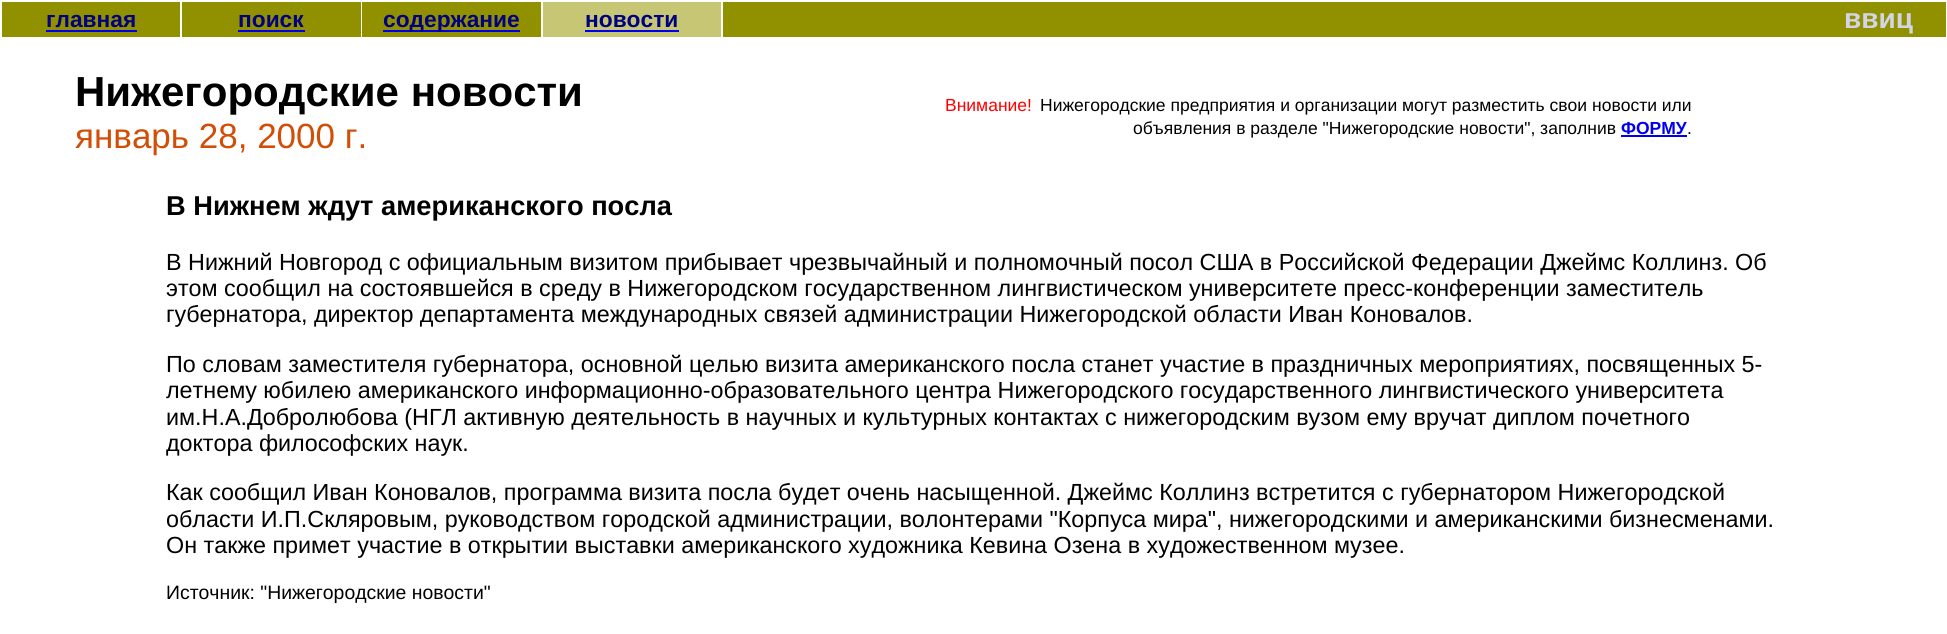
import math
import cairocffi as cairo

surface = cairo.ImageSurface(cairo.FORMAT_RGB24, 1947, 634)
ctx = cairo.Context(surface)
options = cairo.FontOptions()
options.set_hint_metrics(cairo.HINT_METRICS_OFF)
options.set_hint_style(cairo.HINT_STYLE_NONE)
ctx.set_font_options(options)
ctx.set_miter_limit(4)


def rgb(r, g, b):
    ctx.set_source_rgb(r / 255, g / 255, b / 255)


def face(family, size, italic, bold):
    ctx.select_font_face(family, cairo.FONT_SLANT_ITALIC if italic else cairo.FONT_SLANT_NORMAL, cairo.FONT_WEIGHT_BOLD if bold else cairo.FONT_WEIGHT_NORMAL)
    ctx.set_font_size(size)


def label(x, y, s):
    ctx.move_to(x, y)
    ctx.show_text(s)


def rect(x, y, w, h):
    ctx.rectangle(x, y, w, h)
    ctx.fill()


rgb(255, 255, 255)
ctx.paint()
rgb(145, 145, 0)
rect(2, 2, 178, 35)
face('Liberation Sans', 22.75, 0, 1)
rgb(0, 0, 128)
label(46, 27, 'главная')
rgb(0, 0, 238)
rect(46, 30, 91, 2)
rgb(145, 145, 0)
rect(182, 2, 179, 35)
rgb(0, 0, 128)
label(238, 27, 'поиск')
rgb(0, 0, 238)
rect(238, 30, 67, 2)
rgb(145, 145, 0)
rect(362, 2, 179, 35)
rgb(0, 0, 238)
rect(383, 30, 137, 2)
rgb(0, 0, 128)
label(383, 27, 'содержание')
rgb(198, 198, 117)
rect(543, 2, 178, 35)
rgb(0, 0, 128)
label(585, 27, 'новости')
rgb(0, 0, 238)
rect(585, 30, 94, 2)
rgb(145, 145, 0)
rect(723, 2, 1223, 35)
face('Liberation Sans', 28, 0, 1)
rgb(210, 213, 230)
label(1844, 28, 'ввиц')
face('Liberation Sans', 42, 0, 1)
rgb(0, 0, 0)
label(75, 106, 'Нижегородские новости')
face('Liberation Sans', 35, 0, 0)
rgb(210, 78, 6)
label(75, 148, 'январь 28, 2000 г.')
face('Liberation Sans', 17.5, 0, 0)
rgb(255, 0, 0)
label(945, 111, 'Внимание!')
rgb(0, 0, 0)
label(1040, 111, 'Нижегородские предприятия и организации могут разместить свои новости или')
label(1133, 134, 'объявления в разделе "Нижегородские новости", заполнив')
face('Liberation Sans', 17.5, 0, 1)
rgb(0, 0, 238)
label(1621, 134, 'ФОРМУ')
face('Liberation Sans', 17.5, 0, 0)
rgb(0, 0, 0)
label(1687, 134, '.')
rgb(0, 0, 238)
rect(1621, 135, 66, 2)
face('Liberation Sans', 27.25, 0, 1)
rgb(0, 0, 0)
label(166, 215, 'В Нижнем ждут американского посла')
face('Liberation Sans', 23.33, 0, 0)
label(166, 270, 'В Нижний Новгород с официальным визитом прибывает чрезвычайный и полномочный посол США в Российской Федерации Джеймс Коллинз. Об')
label(166, 296, 'этом сообщил на состоявшейся в среду в Нижегородском государственном лингвистическом университете пресс-конференции заместитель')
label(166, 322, 'губернатора, директор департамента международных связей администрации Нижегородской области Иван Коновалов.')
label(166, 372, 'По словам заместителя губернатора, основной целью визита американского посла станет участие в праздничных мероприятиях, посвященных 5-')
label(166, 398, 'летнему юбилею американского информационно-образовательного центра Нижегородского государственного лингвистического университета')
label(166, 425, 'им.Н.А.Добролюбова (НГЛ активную деятельность в научных и культурных контактах с нижегородским вузом ему вручат диплом почетного')
label(166, 451, 'доктора философских наук.')
label(166, 500, 'Как сообщил Иван Коновалов, программа визита посла будет очень насыщенной. Джеймс Коллинз встретится с губернатором Нижегородской')
label(166, 527, 'области И.П.Скляровым, руководством городской администрации, волонтерами "Корпуса мира", нижегородскими и американскими бизнесменами.')
label(166, 553, 'Он также примет участие в открытии выставки американского художника Кевина Озена в художественном музее.')
face('Liberation Sans', 19.4, 0, 0)
label(166, 599, 'Источник: "Нижегородские новости"')
surface.write_to_png('render.png')
